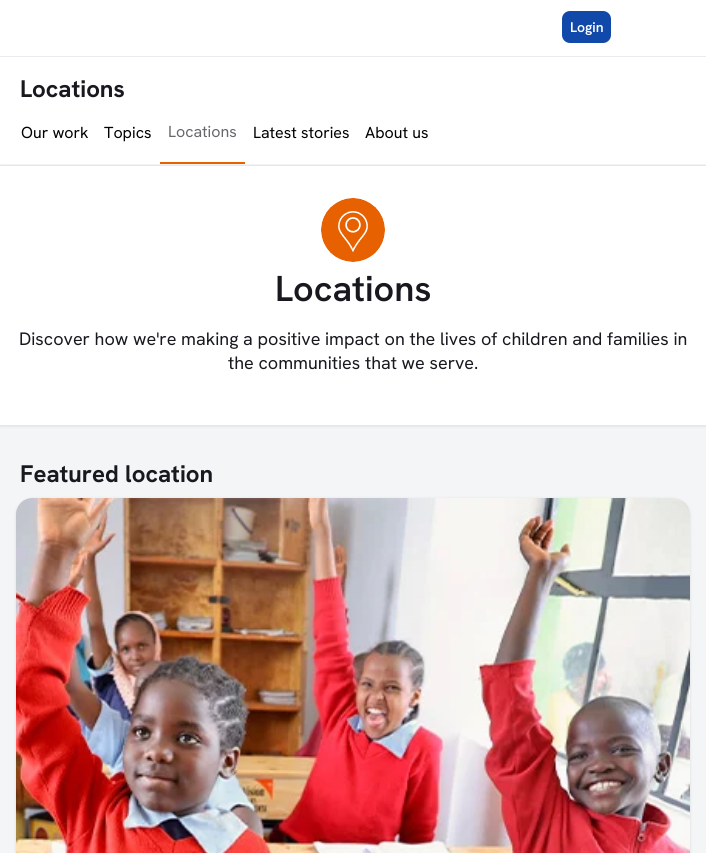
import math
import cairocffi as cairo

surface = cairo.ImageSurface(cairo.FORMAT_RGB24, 706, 853)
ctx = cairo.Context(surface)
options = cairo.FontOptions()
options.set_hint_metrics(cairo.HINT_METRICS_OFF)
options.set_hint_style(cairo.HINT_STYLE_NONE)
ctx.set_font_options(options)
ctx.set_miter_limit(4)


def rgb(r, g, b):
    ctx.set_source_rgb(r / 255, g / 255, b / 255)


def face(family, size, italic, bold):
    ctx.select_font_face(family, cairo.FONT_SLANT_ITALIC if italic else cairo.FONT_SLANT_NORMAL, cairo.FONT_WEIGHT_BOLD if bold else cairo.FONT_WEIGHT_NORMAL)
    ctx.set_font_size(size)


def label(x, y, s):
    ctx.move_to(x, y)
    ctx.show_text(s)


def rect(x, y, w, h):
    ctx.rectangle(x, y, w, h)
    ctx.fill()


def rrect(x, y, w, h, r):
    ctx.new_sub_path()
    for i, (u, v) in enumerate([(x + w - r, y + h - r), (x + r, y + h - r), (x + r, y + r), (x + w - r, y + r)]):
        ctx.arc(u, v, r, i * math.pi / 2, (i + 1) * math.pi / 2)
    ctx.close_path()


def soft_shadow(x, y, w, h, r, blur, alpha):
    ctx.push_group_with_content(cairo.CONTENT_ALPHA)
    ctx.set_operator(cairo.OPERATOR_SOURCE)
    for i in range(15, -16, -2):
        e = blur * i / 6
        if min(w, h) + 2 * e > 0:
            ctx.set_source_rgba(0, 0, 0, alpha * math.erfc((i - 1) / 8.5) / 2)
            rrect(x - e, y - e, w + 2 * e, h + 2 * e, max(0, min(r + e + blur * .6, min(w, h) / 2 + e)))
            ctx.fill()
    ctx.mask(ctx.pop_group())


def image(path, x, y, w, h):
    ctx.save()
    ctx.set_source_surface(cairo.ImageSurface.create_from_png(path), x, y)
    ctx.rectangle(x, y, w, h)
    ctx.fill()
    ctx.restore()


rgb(244, 245, 247)
ctx.paint()
rgb(255, 255, 255)
rect(0, 0, 706, 56)
rgb(16, 73, 169)
rrect(562, 11, 49, 32, 8)
ctx.fill()
face('Hanken Grotesk SemiBold', 14, 0, 0)
rgb(255, 255, 255)
label(570, 32, 'Login')
rect(0, 57, 706, 107)
rgb(234, 235, 238)
rect(0, 56, 706, 1)
face('Hanken Grotesk', 24, 0, 1)
rgb(23, 25, 31)
label(20, 97, 'Locations')
rgb(234, 235, 238)
rect(0, 165, 706, 1)
face('Hanken Grotesk', 16, 0, 0)
rgb(0, 0, 0)
label(21, 138, 'Our work')
label(104, 138, 'Topics')
rgb(232, 97, 0)
rect(160, 162, 85, 2)
rgb(101, 103, 107)
label(168, 137, 'Locations')
rgb(0, 0, 0)
label(253, 138, 'Latest stories')
label(365, 138, 'About us')
rgb(0, 0, 0)
soft_shadow(0, 167, 706, 259, 0, 1.5, 0.1)
rgb(255, 255, 255)
rect(0, 166, 706, 259)
image('image0.png', 321, 198, 64, 64)
face('Hanken Grotesk SemiBold', 36, 0, 0)
rgb(23, 25, 31)
label(275, 301, 'Locations')
face('Hanken Grotesk', 18, 0, 0)
label(19, 345, 'Discover how we\'re making a positive impact on the lives of children and families in')
label(228, 369, 'the communities that we serve.')
face('Hanken Grotesk', 24, 0, 1)
label(20, 482, 'Featured location')
rgb(0, 0, 0)
soft_shadow(16, 499, 674, 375, 16, 1.5, 0.1)
rgb(255, 255, 255)
rrect(16, 498, 674, 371, 16)
ctx.fill()
image('image1.png', 16, 498, 674, 355)
surface.write_to_png('render.png')
